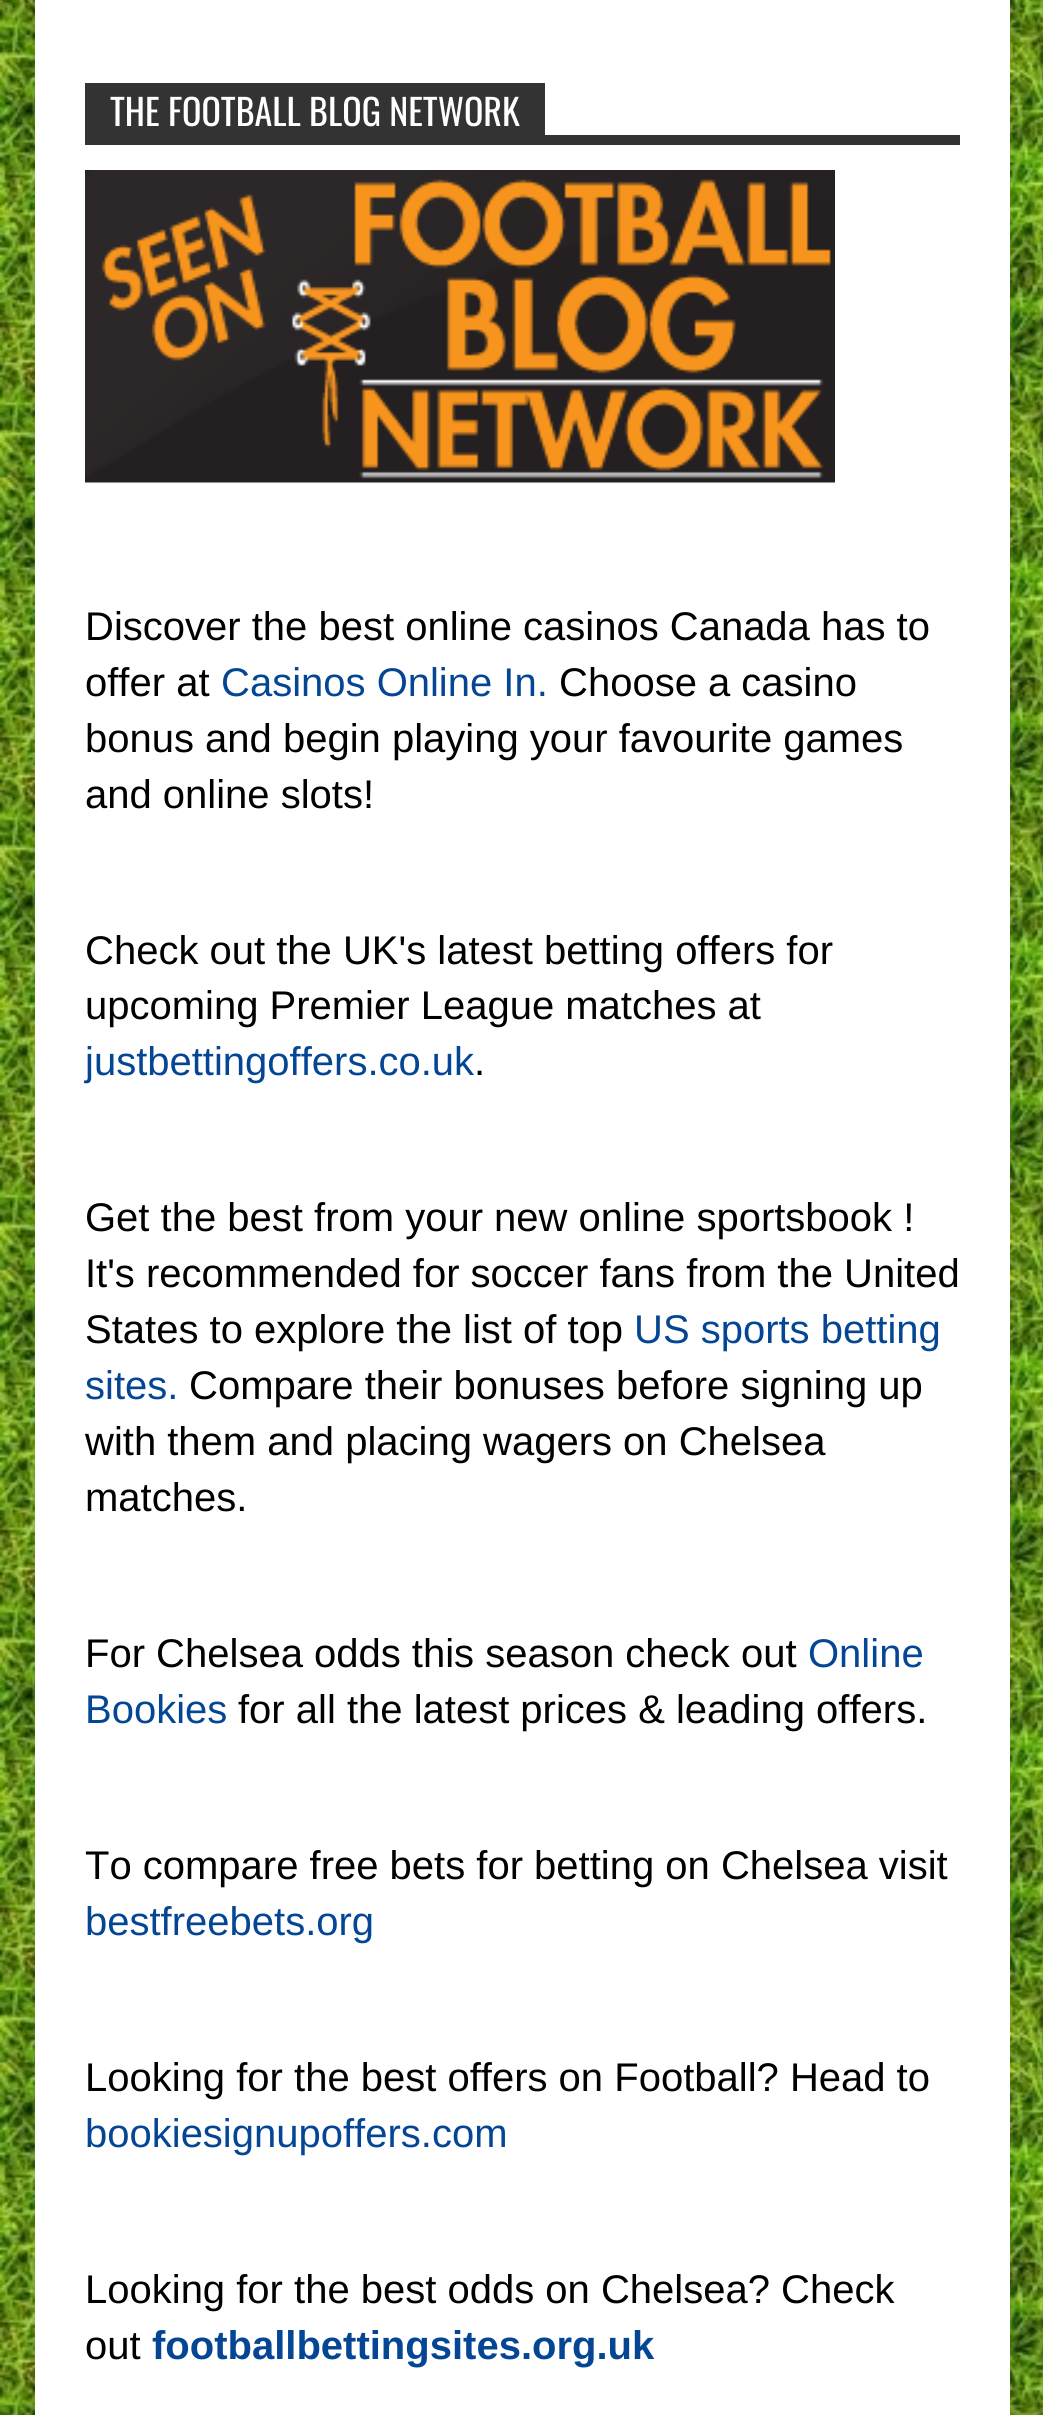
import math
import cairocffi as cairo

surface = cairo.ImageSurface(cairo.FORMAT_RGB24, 1043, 2415)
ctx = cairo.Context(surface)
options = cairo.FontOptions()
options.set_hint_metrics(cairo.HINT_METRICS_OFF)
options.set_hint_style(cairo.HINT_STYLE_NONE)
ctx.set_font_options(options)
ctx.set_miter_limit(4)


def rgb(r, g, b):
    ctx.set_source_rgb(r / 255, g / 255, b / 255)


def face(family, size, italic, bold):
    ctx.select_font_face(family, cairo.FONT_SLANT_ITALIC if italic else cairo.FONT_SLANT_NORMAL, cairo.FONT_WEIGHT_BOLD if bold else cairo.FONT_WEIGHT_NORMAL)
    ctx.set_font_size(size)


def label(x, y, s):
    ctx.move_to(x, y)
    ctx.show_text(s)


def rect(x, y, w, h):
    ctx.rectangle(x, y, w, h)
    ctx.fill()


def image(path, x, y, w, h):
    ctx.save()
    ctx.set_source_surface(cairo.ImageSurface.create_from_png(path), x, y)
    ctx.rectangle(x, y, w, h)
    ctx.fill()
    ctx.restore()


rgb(255, 255, 255)
ctx.paint()
image('image0.png', 0, 0, 1043, 2415)
rgb(255, 255, 255)
rect(35, 0, 975, 2415)
rgb(51, 51, 51)
rect(85, 135, 875, 10)
rect(85, 83, 460, 52)
face('Oswald', 36, 0, 0)
rgb(255, 255, 255)
label(110, 126, 'THE FOOTBALL BLOG NETWORK')
image('image1.png', 85, 170, 750, 313)
face('Liberation Sans', 40, 0, 0)
rgb(0, 0, 0)
label(85, 640, 'Discover the best online casinos Canada has to')
label(85, 696, 'offer at')
rgb(4, 70, 148)
label(221, 696, 'Casinos Online In.')
rgb(0, 0, 0)
label(559, 696, 'Choose a casino')
label(85, 752, 'bonus and begin playing your favourite games')
label(85, 808, 'and online slots!')
label(85, 964, 'Check out the UK\'s latest betting offers for')
label(85, 1019, 'upcoming Premier League matches at')
rgb(4, 70, 148)
label(85, 1075, 'justbettingoffers.co.uk')
rgb(0, 0, 0)
label(474, 1075, '.')
label(85, 1231, 'Get the best from your new online sportsbook !')
label(85, 1287, 'It\'s recommended for soccer fans from the United')
label(85, 1343, 'States to explore the list of top')
rgb(4, 70, 148)
label(634, 1343, 'US sports betting')
label(85, 1399, 'sites.')
rgb(0, 0, 0)
label(189, 1399, 'Compare their bonuses before signing up')
label(85, 1455, 'with them and placing wagers on Chelsea')
label(85, 1511, 'matches.')
label(85, 1667, 'For Chelsea odds this season check out')
rgb(4, 70, 148)
label(808, 1667, 'Online')
label(85, 1723, 'Bookies')
rgb(0, 0, 0)
label(238, 1723, 'for all the latest prices & leading offers.')
label(85, 1879, 'To compare free bets for betting on Chelsea visit')
rgb(4, 70, 148)
label(85, 1935, 'bestfreebets.org')
rgb(0, 0, 0)
label(85, 2091, 'Looking for the best offers on Football? Head to')
rgb(4, 70, 148)
label(85, 2147, 'bookiesignupoffers.com')
rgb(0, 0, 0)
label(85, 2303, 'Looking for the best odds on Chelsea? Check')
label(85, 2359, 'out')
face('Liberation Sans', 40, 0, 1)
rgb(4, 70, 148)
label(152, 2359, 'footballbettingsites.org.uk')
surface.write_to_png('render.png')
